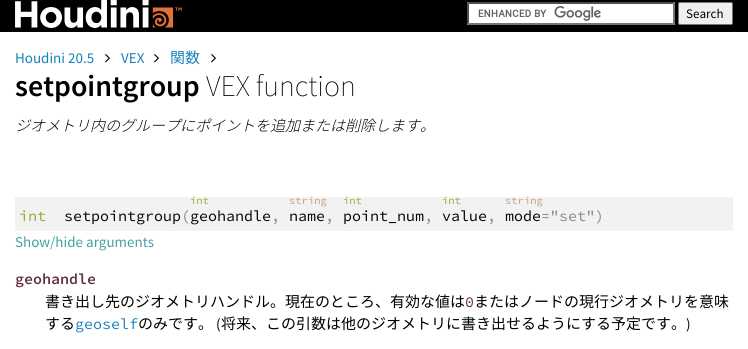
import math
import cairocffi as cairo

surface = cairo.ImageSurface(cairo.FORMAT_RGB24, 748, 349)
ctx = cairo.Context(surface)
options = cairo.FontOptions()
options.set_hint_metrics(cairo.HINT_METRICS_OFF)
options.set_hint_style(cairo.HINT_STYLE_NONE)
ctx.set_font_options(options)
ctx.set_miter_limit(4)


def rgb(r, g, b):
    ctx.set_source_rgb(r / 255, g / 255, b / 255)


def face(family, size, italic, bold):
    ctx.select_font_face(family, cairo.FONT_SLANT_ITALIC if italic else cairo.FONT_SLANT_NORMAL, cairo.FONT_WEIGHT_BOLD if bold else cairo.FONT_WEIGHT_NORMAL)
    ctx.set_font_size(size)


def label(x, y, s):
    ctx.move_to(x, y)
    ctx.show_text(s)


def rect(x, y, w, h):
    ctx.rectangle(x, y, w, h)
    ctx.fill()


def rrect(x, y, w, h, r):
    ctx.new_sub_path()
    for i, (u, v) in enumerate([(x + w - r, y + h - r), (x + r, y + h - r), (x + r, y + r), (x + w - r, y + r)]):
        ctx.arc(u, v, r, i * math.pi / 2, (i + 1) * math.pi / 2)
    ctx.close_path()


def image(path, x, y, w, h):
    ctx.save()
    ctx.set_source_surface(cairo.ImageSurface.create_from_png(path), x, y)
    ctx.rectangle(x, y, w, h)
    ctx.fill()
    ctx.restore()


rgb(255, 255, 255)
ctx.paint()
rgb(0, 0, 0)
rect(0, 0, 748, 32)
image('image0.png', 15, 0, 167, 28)
rgb(255, 255, 255)
rect(467, 2, 208, 23)
image('image1.png', 478, 6, 123, 15)
rgb(79, 79, 79)
ctx.new_path()
ctx.move_to(467, 2)
ctx.line_to(675, 2)
ctx.line_to(673, 4)
ctx.line_to(469, 4)
ctx.close_path()
ctx.fill()
rgb(118, 118, 118)
ctx.new_path()
ctx.move_to(675, 2)
ctx.line_to(675, 25)
ctx.line_to(673, 23)
ctx.line_to(673, 4)
ctx.close_path()
ctx.fill()
ctx.new_path()
ctx.move_to(675, 25)
ctx.line_to(467, 25)
ctx.line_to(469, 23)
ctx.line_to(673, 23)
ctx.close_path()
ctx.fill()
rgb(79, 79, 79)
ctx.new_path()
ctx.move_to(467, 25)
ctx.line_to(467, 2)
ctx.line_to(469, 4)
ctx.line_to(469, 23)
ctx.close_path()
ctx.fill()
rgb(239, 239, 239)
rrect(678.5, 2.5, 54, 22, 1.5)
ctx.fill_preserve()
rgb(118, 118, 118)
ctx.set_line_width(1)
ctx.stroke()
face('Source Sans Pro', 13, 0, 0)
rgb(0, 0, 0)
label(686, 18, 'Search')
face('Source Sans Pro', 15, 0, 0)
rgb(23, 130, 186)
label(15, 63, 'Houdini 20.5')
image('image2.png', 105, 54, 5, 9)
label(121, 63, 'VEX')
image('image2.png', 154, 54, 5, 9)
face('Noto Sans CJK JP', 15, 0, 0)
label(170, 63, '関数')
image('image2.png', 211, 54, 5, 9)
face('Source Sans Pro SemiBold', 30, 0, 0)
rgb(0, 0, 0)
label(15, 96, 'setpointgroup')
face('Source Sans Pro ExtraLight', 30, 0, 0)
label(206, 96, 'VEX function')
face('Noto Sans CJK JP Light', 15, 1, 0)
label(15, 131, 'ジオメトリ内のグループにポイントを追加または削除します。')
rgb(242, 242, 242)
rect(15, 197, 718, 34)
face('Source Code Pro', 10.5, 0, 0)
rgb(145, 168, 53)
label(190, 204, 'int')
rgb(195, 156, 121)
label(289, 204, 'string')
rgb(145, 168, 53)
label(343, 204, 'int')
label(442, 204, 'int')
rgb(195, 156, 121)
label(505, 204, 'string')
face('Source Code Pro', 15, 0, 0)
rgb(145, 168, 53)
label(19, 221, 'int')
rgb(0, 0, 0)
label(64, 221, 'setpointgroup geohandle')
rgb(136, 136, 136)
label(181, 221, '(')
label(271, 221, ',')
rgb(0, 0, 0)
label(289, 221, 'name')
rgb(136, 136, 136)
label(325, 221, ',')
rgb(0, 0, 0)
label(343, 221, 'point_num')
rgb(136, 136, 136)
label(424, 221, ',')
rgb(0, 0, 0)
label(442, 221, 'value')
rgb(136, 136, 136)
label(487, 221, ',')
rgb(0, 0, 0)
label(505, 221, 'mode')
rgb(136, 136, 136)
label(541, 221, '="set")')
face('Source Sans Pro', 15, 0, 0)
rgb(66, 160, 164)
label(15, 247, 'Show/hide arguments')
face('Source Code Pro SemiBold', 15, 0, 0)
rgb(99, 46, 70)
label(15, 284, 'geohandle')
face('Noto Sans CJK JP', 15, 0, 0)
rgb(0, 0, 0)
label(45, 307, '書き出し先のジオメトリハンドル。現在のところ、有効な値は')
face('Source Code Pro', 15, 0, 0)
rgb(99, 46, 70)
label(465, 307, '0')
face('Noto Sans CJK JP', 15, 0, 0)
rgb(0, 0, 0)
label(474, 307, 'またはノードの現行ジオメトリを意味')
label(45, 329, 'する')
face('Source Code Pro', 15, 0, 0)
rgb(23, 130, 186)
label(75, 329, 'geoself')
face('Noto Sans CJK JP', 15, 0, 0)
rgb(0, 0, 0)
label(138, 329, 'のみです。')
face('Source Sans Pro', 15, 0, 0)
label(216, 329, '(')
face('Noto Sans CJK JP', 15, 0, 0)
label(221, 329, '将来、この引数は他のジオメトリに書き出せるようにする予定です。')
face('Source Sans Pro', 15, 0, 0)
label(686, 329, ')')
surface.write_to_png('render.png')
